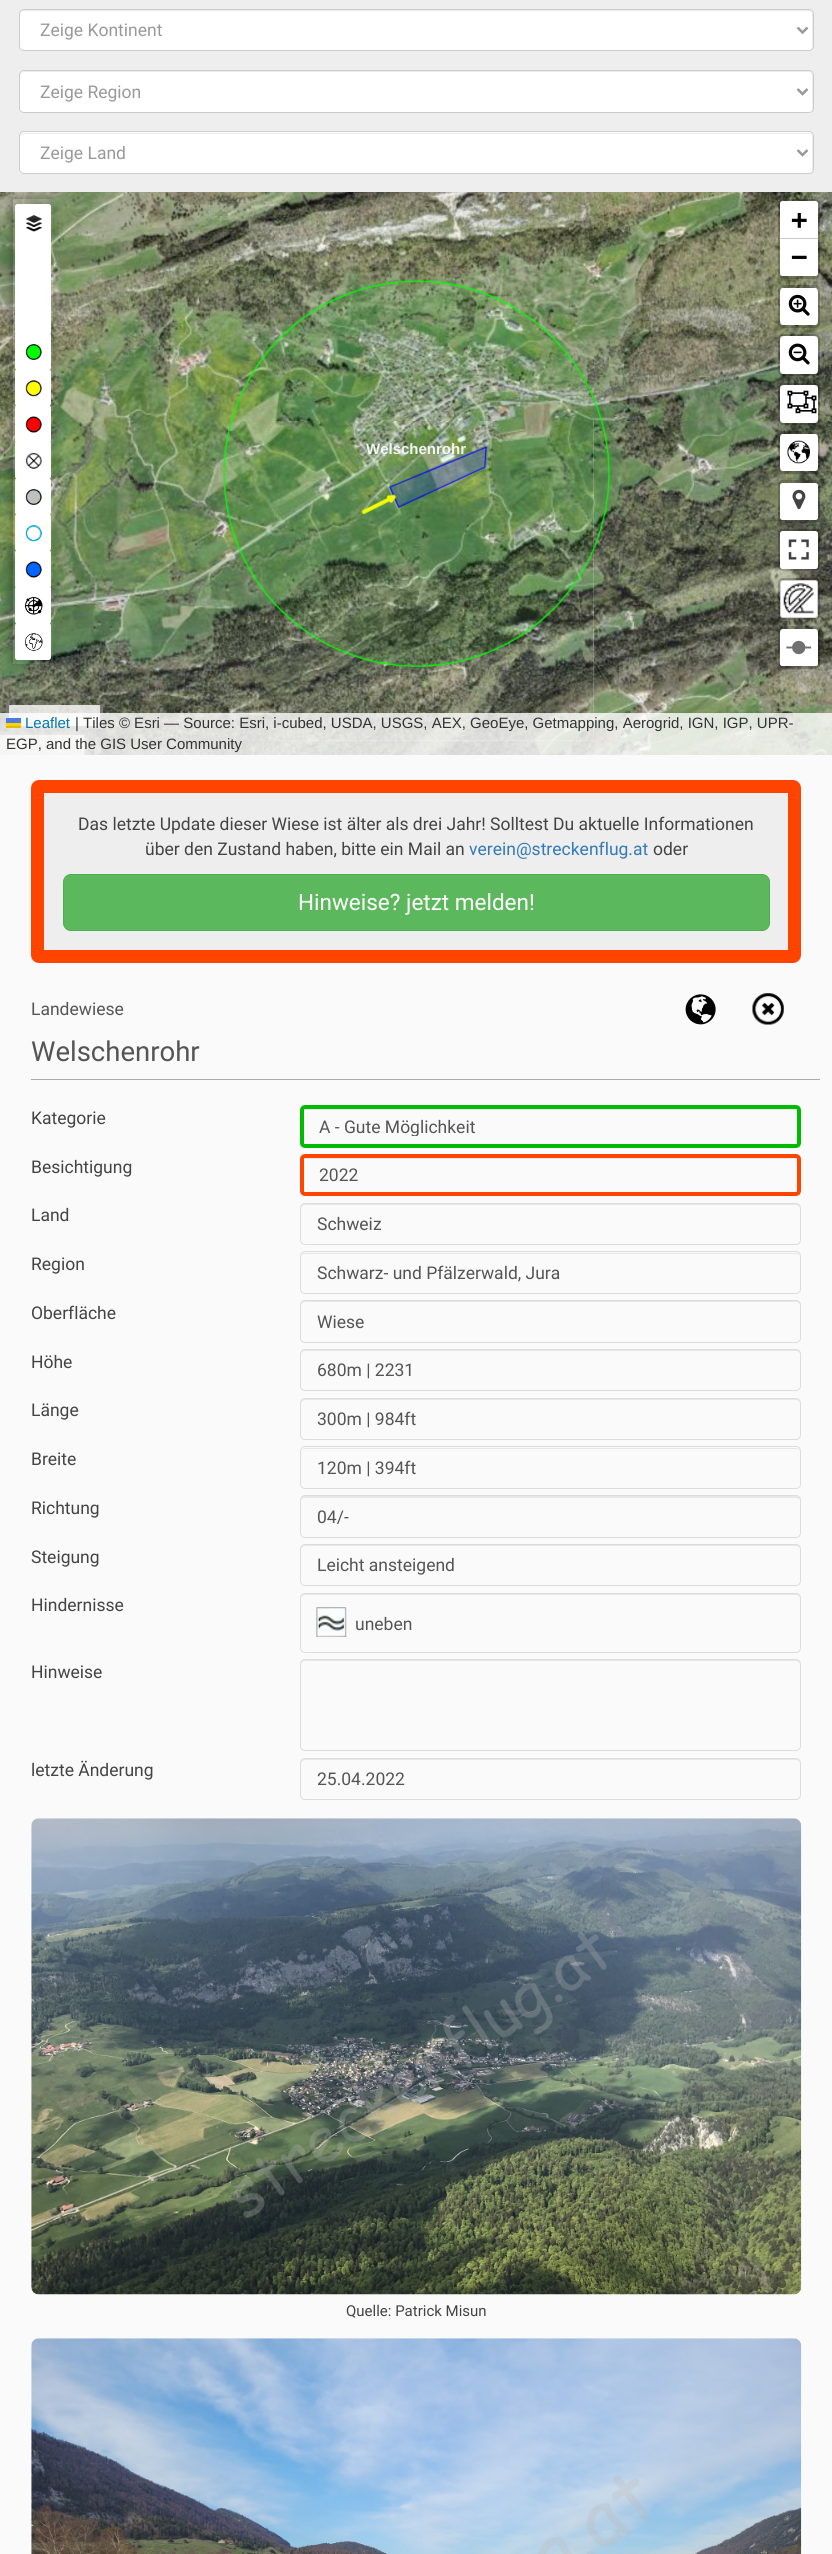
import math
import cairocffi as cairo

surface = cairo.ImageSurface(cairo.FORMAT_RGB24, 832, 2554)
ctx = cairo.Context(surface)
options = cairo.FontOptions()
options.set_hint_metrics(cairo.HINT_METRICS_OFF)
options.set_hint_style(cairo.HINT_STYLE_NONE)
ctx.set_font_options(options)
ctx.set_miter_limit(4)


def rgb(r, g, b):
    ctx.set_source_rgb(r / 255, g / 255, b / 255)


def face(family, size, italic, bold):
    ctx.select_font_face(family, cairo.FONT_SLANT_ITALIC if italic else cairo.FONT_SLANT_NORMAL, cairo.FONT_WEIGHT_BOLD if bold else cairo.FONT_WEIGHT_NORMAL)
    ctx.set_font_size(size)


def label(x, y, s):
    ctx.move_to(x, y)
    ctx.show_text(s)


def rect(x, y, w, h):
    ctx.rectangle(x, y, w, h)
    ctx.fill()


def rrect(x, y, w, h, r):
    ctx.new_sub_path()
    for i, (u, v) in enumerate([(x + w - r, y + h - r), (x + r, y + h - r), (x + r, y + r), (x + w - r, y + r)]):
        ctx.arc(u, v, r, i * math.pi / 2, (i + 1) * math.pi / 2)
    ctx.close_path()


def soft_shadow(x, y, w, h, r, blur, alpha):
    ctx.push_group_with_content(cairo.CONTENT_ALPHA)
    ctx.set_operator(cairo.OPERATOR_SOURCE)
    for i in range(15, -16, -2):
        e = blur * i / 6
        if min(w, h) + 2 * e > 0:
            ctx.set_source_rgba(0, 0, 0, alpha * math.erfc((i - 1) / 8.5) / 2)
            rrect(x - e, y - e, w + 2 * e, h + 2 * e, max(0, min(r + e + blur * .6, min(w, h) / 2 + e)))
            ctx.fill()
    ctx.mask(ctx.pop_group())


def image(path, x, y, w, h):
    ctx.save()
    ctx.set_source_surface(cairo.ImageSurface.create_from_png(path), x, y)
    ctx.rectangle(x, y, w, h)
    ctx.fill()
    ctx.restore()


rgb(250, 250, 250)
ctx.paint()
rgb(238, 238, 238)
rect(0, 0, 832, 192)
rgb(255, 255, 255)
rrect(19, 9, 795, 42, 5)
ctx.fill()
rgb(236, 236, 236)
ctx.new_path()
ctx.move_to(24, 11)
ctx.line_to(809, 11)
ctx.curve_to(811, 11, 812, 13, 812, 15)
ctx.line_to(812, 49)
ctx.curve_to(813, 48, 813, 47, 813, 46)
ctx.line_to(813, 14)
ctx.curve_to(813, 12, 811, 10, 809, 10)
ctx.line_to(24, 10)
ctx.curve_to(22, 10, 20, 12, 20, 14)
ctx.line_to(20, 15)
ctx.curve_to(20, 13, 22, 11, 24, 11)
ctx.close_path()
ctx.fill()
rrect(19.5, 9.5, 794, 41, 4.5)
rgb(204, 204, 204)
ctx.set_line_width(1)
ctx.stroke()
ctx.new_path()
ctx.move_to(797.5, 27.5)
ctx.line_to(802.5, 32.5)
ctx.line_to(807.5, 27.5)
rgb(153, 153, 153)
ctx.set_line_width(2.5)
ctx.stroke()
face('Roboto', 17.5, 0, 0)
label(40, 36, 'Zeige Kontinent')
rgb(255, 255, 255)
rrect(19, 70, 795, 43, 5)
ctx.fill()
rgb(236, 236, 236)
ctx.new_path()
ctx.move_to(24, 72)
ctx.line_to(809, 72)
ctx.curve_to(811, 72, 812, 74, 812, 76)
ctx.line_to(812, 110)
ctx.curve_to(813, 109, 813, 108, 813, 107)
ctx.line_to(813, 75)
ctx.curve_to(813, 73, 811, 71, 809, 71)
ctx.line_to(24, 71)
ctx.curve_to(22, 71, 20, 73, 20, 75)
ctx.line_to(20, 76)
ctx.curve_to(20, 74, 22, 72, 24, 72)
ctx.close_path()
ctx.fill()
rrect(19.5, 70.5, 794, 42, 4.5)
rgb(204, 204, 204)
ctx.set_line_width(1)
ctx.stroke()
ctx.new_path()
ctx.move_to(797.5, 89)
ctx.line_to(802.5, 94)
ctx.line_to(807.5, 89)
rgb(153, 153, 153)
ctx.set_line_width(2.5)
ctx.stroke()
label(40, 98, 'Zeige Region')
rgb(255, 255, 255)
rrect(19, 131, 795, 43, 5)
ctx.fill()
rgb(236, 236, 236)
ctx.new_path()
ctx.move_to(24, 134)
ctx.line_to(809, 134)
ctx.curve_to(811, 134, 812, 135, 812, 138)
ctx.line_to(812, 172)
ctx.curve_to(812, 171, 813, 170, 813, 169)
ctx.line_to(813, 137)
ctx.curve_to(813, 135, 811, 133, 809, 133)
ctx.line_to(24, 133)
ctx.curve_to(22, 133, 20, 135, 20, 137)
ctx.line_to(20, 138)
ctx.curve_to(20, 135, 22, 134, 24, 134)
ctx.close_path()
ctx.fill()
rrect(19.5, 131.5, 794, 42, 4.5)
rgb(204, 204, 204)
ctx.set_line_width(1)
ctx.stroke()
ctx.new_path()
ctx.move_to(797.5, 150)
ctx.line_to(802.5, 155)
ctx.line_to(807.5, 150)
rgb(153, 153, 153)
ctx.set_line_width(2.5)
ctx.stroke()
label(40, 159, 'Zeige Land')
rgb(221, 221, 221)
rect(274, 421, 320, 320)
image('image18.png', 0, 192, 274, 229)
image('image21.png', 0, 421, 274, 320)
ctx.save()
ctx.rectangle(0, 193, 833, 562)
ctx.clip()
ctx.set_fill_rule(cairo.FILL_RULE_EVEN_ODD)
ctx.new_path()
ctx.move_to(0, 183)
ctx.line_to(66, 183)
ctx.line_to(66, 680)
ctx.line_to(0, 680)
ctx.close_path()
ctx.move_to(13, 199)
ctx.line_to(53, 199)
ctx.line_to(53, 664)
ctx.line_to(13, 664)
ctx.close_path()
ctx.clip()
rgb(0, 0, 0)
soft_shadow(10, 199, 40, 465, 0, 5, 0.3)
ctx.restore()
rgb(255, 255, 255)
rrect(15, 204, 36, 37, 2.5)
ctx.fill()
image('image0.png', 25, 215, 17, 17)
rrect(15, 235, 36, 38, 2.5)
ctx.fill()
rrect(15, 266, 36, 38, 2.5)
ctx.fill()
rrect(15, 298, 36, 37, 2.5)
ctx.fill()
rrect(15, 333, 36, 37, 2.5)
ctx.fill()
image('image1.png', 25, 344, 17, 16)
rrect(15, 369, 36, 37, 2.5)
ctx.fill()
image('image2.png', 25, 380, 17, 17)
rrect(15, 405, 36, 38, 2.5)
ctx.fill()
image('image3.png', 25, 416, 17, 17)
rrect(15, 441, 36, 38, 2.5)
ctx.fill()
image('image4.png', 25, 452, 17, 17)
rrect(15, 478, 36, 37, 2.5)
ctx.fill()
image('image5.png', 25, 489, 17, 16)
rrect(15, 514, 36, 37, 2.5)
ctx.fill()
image('image6.png', 25, 525, 17, 17)
rrect(15, 550, 36, 38, 2.5)
ctx.fill()
image('image7.png', 25, 561, 17, 17)
rrect(15, 586, 36, 38, 2.5)
ctx.fill()
image('image8.png', 25, 597, 18, 18)
rrect(15, 623, 36, 37, 2.5)
ctx.fill()
image('image9.png', 25, 633, 18, 18)
image('image20.png', 594, 192, 238, 229)
rrect(779.5, 200.5, 39, 77, 3.5)
ctx.set_source_rgba(0, 0, 0, 0.2)
ctx.set_line_width(3)
ctx.stroke()
rgb(255, 255, 255)
ctx.new_path()
ctx.move_to(782.5, 201)
ctx.line_to(815.5, 201)
ctx.curve_to(817, 201, 818, 202, 818, 203.5)
ctx.line_to(818, 239)
ctx.line_to(780, 239)
ctx.line_to(780, 203.5)
ctx.curve_to(780, 202, 781, 201, 782.5, 201)
ctx.close_path()
ctx.fill()
rgb(204, 204, 204)
rect(780, 238, 38, 1)
face('DejaVu Sans Mono', 27.5, 0, 1)
rgb(0, 0, 0)
label(791, 229, '+')
rgb(255, 255, 255)
ctx.new_path()
ctx.move_to(780, 239)
ctx.line_to(818, 239)
ctx.line_to(818, 273.5)
ctx.curve_to(818, 275, 817, 276, 815.5, 276)
ctx.line_to(782.5, 276)
ctx.curve_to(781, 276, 780, 275, 780, 273.5)
ctx.close_path()
ctx.fill()
rgb(0, 0, 0)
label(791, 266, '−')
rgb(255, 255, 255)
rrect(780, 288, 38, 37, 2.5)
ctx.fill()
rrect(779.5, 286.5, 39, 40, 3.5)
ctx.set_source_rgba(0, 0, 0, 0.2)
ctx.stroke()
rgb(255, 255, 255)
rrect(780, 288, 38, 37, 5)
ctx.fill()
image('image10.png', 788, 294, 22, 22)
rrect(780, 336, 38, 38, 2.5)
ctx.fill()
rrect(779.5, 335.5, 39, 39, 3.5)
ctx.set_source_rgba(0, 0, 0, 0.2)
ctx.stroke()
rgb(255, 255, 255)
rrect(780, 336, 38, 38, 5)
ctx.fill()
image('image11.png', 788, 343, 22, 22)
image('image23.png', 594, 421, 238, 320)
rrect(780, 385, 38, 38, 2.5)
ctx.fill()
rrect(779.5, 384.5, 39, 39, 3.5)
ctx.set_source_rgba(0, 0, 0, 0.2)
ctx.stroke()
rgb(255, 255, 255)
rrect(780, 385, 38, 38, 5)
ctx.fill()
image('image12.png', 787, 390, 30, 24)
rrect(780, 434, 38, 37, 2.5)
ctx.fill()
rrect(779.5, 432.5, 39, 40, 3.5)
ctx.set_source_rgba(0, 0, 0, 0.2)
ctx.stroke()
rgb(255, 255, 255)
rrect(780, 434, 38, 37, 5)
ctx.fill()
image('image13.png', 787, 440, 23, 24)
rrect(779.5, 481.5, 39, 40, 3.5)
ctx.set_source_rgba(0, 0, 0, 0.2)
ctx.stroke()
rgb(255, 255, 255)
rrect(780, 483, 38, 37, 2.5)
ctx.fill()
image('image14.png', 792, 489, 14, 21)
rrect(779.5, 530.5, 39, 39, 3.5)
ctx.set_source_rgba(0, 0, 0, 0.2)
ctx.stroke()
rgb(255, 255, 255)
rrect(780, 531, 38, 38, 2.5)
ctx.fill()
image('image15.png', 788, 539, 21, 21)
rrect(780, 580, 38, 38, 2.5)
ctx.fill()
image('image16.png', 783, 583, 31, 31)
rrect(779.5, 579.5, 39, 39, 3.5)
ctx.set_source_rgba(0, 0, 0, 0.2)
ctx.stroke()
rgb(255, 255, 255)
rrect(780, 629, 38, 37, 2.5)
ctx.fill()
rrect(779.5, 627.5, 39, 40, 3.5)
ctx.set_source_rgba(0, 0, 0, 0.2)
ctx.stroke()
rgb(255, 255, 255)
ctx.new_path()
ctx.move_to(785, 629)
ctx.line_to(813, 629)
ctx.curve_to(816, 629, 818, 631, 818, 634)
ctx.line_to(818, 663.5)
ctx.curve_to(818, 665, 817, 666, 815.5, 666)
ctx.line_to(782.5, 666)
ctx.curve_to(781, 666, 780, 665, 780, 663.5)
ctx.line_to(780, 634)
ctx.curve_to(780, 631, 782, 629, 785, 629)
ctx.close_path()
ctx.fill()
image('image17.png', 786, 640, 26, 15)
ctx.set_source_rgba(1, 1, 1, 0.8)
rect(9, 705, 91, 21)
rgb(119, 119, 119)
rect(100, 705, 3, 24)
rect(6, 726, 97, 3)
rect(6, 705, 3, 24)
image('image24.png', 0, 741, 274, 14)
ctx.save()
ctx.rectangle(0, 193, 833, 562)
ctx.clip()
ctx.set_fill_rule(cairo.FILL_RULE_EVEN_ODD)
ctx.new_path()
ctx.move_to(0, 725)
ctx.line_to(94, 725)
ctx.line_to(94, 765)
ctx.line_to(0, 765)
ctx.close_path()
ctx.move_to(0, 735)
ctx.line_to(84, 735)
ctx.line_to(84, 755)
ctx.line_to(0, 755)
ctx.close_path()
ctx.clip()
rgb(187, 187, 187)
soft_shadow(0, 735, 84, 20, 0, 3, 1)
ctx.restore()
ctx.set_source_rgba(1, 1, 1, 0.7)
rect(0, 735, 84, 20)
image('image22.png', 274, 421, 320, 320)
image('image25.png', 274, 741, 320, 14)
image('image26.png', 594, 741, 238, 14)
ctx.set_source_rgba(1, 1, 1, 0.8)
rect(0, 713, 832, 42)
face('Liberation Sans', 15, 0, 0)
rgb(0, 120, 168)
label(25, 728, 'Leaflet')
rgb(76, 123, 225)
rect(6, 718, 15, 5)
rgb(255, 213, 0)
rect(6, 723, 15, 3)
rgb(224, 188, 0)
rect(6, 726, 15, 2)
rgb(51, 51, 51)
label(75, 728, '| Tiles © Esri — Source: Esri, i-cubed, USDA, USGS, AEX, GeoEye, Getmapping, Aerogrid, IGN, IGP, UPR-')
label(6, 749, 'EGP, and the GIS User Community')
image('image19.png', 274, 192, 320, 229)
image('image27.png', 223, 279, 388, 388)
face('Liberation Sans', 15, 0, 1)
rgb(243, 245, 241)
label(366, 454, 'Welschenrohr')
rgb(238, 238, 238)
rrect(37.5, 786.5, 757, 170, 1.5)
ctx.fill_preserve()
rgb(255, 68, 0)
ctx.set_line_width(13)
ctx.stroke()
face('Roboto', 17.5, 0, 0)
rgb(68, 68, 68)
label(78, 830, 'Das letzte Update dieser Wiese ist älter als drei Jahr! Solltest Du aktuelle Informationen')
label(145, 855, 'über den Zustand haben, bitte ein Mail an')
rgb(51, 122, 183)
label(469, 855, 'verein@streckenflug.at')
rgb(68, 68, 68)
label(653, 855, 'oder')
rgb(92, 184, 92)
rrect(63.5, 874.5, 706, 56, 7.5)
ctx.fill_preserve()
rgb(76, 174, 76)
ctx.set_line_width(1)
ctx.stroke()
face('Roboto', 22.5, 0, 0)
rgb(255, 255, 255)
label(298, 910, 'Hinweise? jetzt melden!')
face('Roboto', 17.5, 0, 0)
rgb(85, 85, 85)
label(31, 1015, 'Landewiese')
image('image28.png', 685, 994, 31, 31)
image('image29.png', 752, 993, 32, 32)
face('Roboto', 27.5, 0, 0)
label(31, 1061, 'Welschenrohr')
rgb(170, 170, 170)
rect(31, 1079, 789, 1)
face('Roboto', 17.5, 0, 0)
rgb(68, 68, 68)
label(31, 1124, 'Kategorie')
rgb(231, 231, 231)
ctx.new_path()
ctx.move_to(305, 1110)
ctx.line_to(796, 1110)
ctx.line_to(798, 1111)
ctx.line_to(798, 1109)
ctx.line_to(305, 1109)
ctx.curve_to(304, 1109, 304, 1110, 304, 1111)
ctx.close_path()
ctx.fill()
rrect(302, 1107, 497, 39, 3)
rgb(0, 187, 0)
ctx.set_line_width(4)
ctx.stroke()
ctx.save()
ctx.rectangle(319, 1116, 464, 20)
ctx.clip()
rgb(85, 85, 85)
label(319, 1133, 'A - Gute Möglichkeit')
ctx.restore()
rgb(68, 68, 68)
label(31, 1173, 'Besichtigung')
rgb(231, 231, 231)
ctx.new_path()
ctx.move_to(305, 1159)
ctx.line_to(796, 1159)
ctx.curve_to(797, 1159, 798, 1159, 798, 1160)
ctx.line_to(798, 1158)
ctx.line_to(305, 1158)
ctx.curve_to(304, 1158, 304, 1159, 304, 1160)
ctx.curve_to(304, 1159, 304, 1159, 305, 1159)
ctx.close_path()
ctx.fill()
rrect(302, 1156, 497, 38, 3)
rgb(255, 68, 0)
ctx.stroke()
rgb(85, 85, 85)
label(319, 1181, '2022')
rgb(68, 68, 68)
label(31, 1221, 'Land')
rgb(231, 231, 231)
ctx.new_path()
ctx.move_to(305, 1205)
ctx.line_to(796, 1205)
ctx.curve_to(798, 1205, 800, 1207, 800, 1209)
ctx.curve_to(800, 1206, 799, 1204, 796, 1204)
ctx.line_to(305, 1204)
ctx.curve_to(302, 1204, 301, 1206, 301, 1209)
ctx.curve_to(301, 1207, 303, 1205, 305, 1205)
ctx.close_path()
ctx.fill()
rrect(300.5, 1203.5, 500, 41, 4.5)
rgb(221, 221, 221)
ctx.set_line_width(1)
ctx.stroke()
rgb(85, 85, 85)
label(317, 1230, 'Schweiz')
rgb(68, 68, 68)
label(31, 1270, 'Region')
rgb(231, 231, 231)
ctx.new_path()
ctx.move_to(305, 1254)
ctx.line_to(796, 1254)
ctx.curve_to(798, 1254, 800, 1255, 800, 1258)
ctx.curve_to(800, 1255, 799, 1253, 796, 1253)
ctx.line_to(305, 1253)
ctx.curve_to(302, 1253, 301, 1255, 301, 1258)
ctx.curve_to(301, 1255, 303, 1254, 305, 1254)
ctx.close_path()
ctx.fill()
rrect(300.5, 1251.5, 500, 42, 4.5)
rgb(221, 221, 221)
ctx.stroke()
rgb(85, 85, 85)
label(317, 1279, 'Schwarz- und Pfälzerwald, Jura')
rgb(68, 68, 68)
label(31, 1319, 'Oberfläche')
rgb(231, 231, 231)
ctx.new_path()
ctx.move_to(305, 1302)
ctx.line_to(796, 1302)
ctx.curve_to(798, 1302, 800, 1304, 800, 1306)
ctx.curve_to(800, 1303, 799, 1301, 796, 1301)
ctx.line_to(305, 1301)
ctx.curve_to(302, 1301, 301, 1303, 301, 1306)
ctx.curve_to(301, 1304, 303, 1302, 305, 1302)
ctx.close_path()
ctx.fill()
rrect(300.5, 1300.5, 500, 42, 4.5)
rgb(221, 221, 221)
ctx.stroke()
rgb(85, 85, 85)
label(317, 1328, 'Wiese')
rgb(68, 68, 68)
label(31, 1368, 'Höhe')
rgb(231, 231, 231)
ctx.new_path()
ctx.move_to(305, 1351)
ctx.line_to(796, 1351)
ctx.curve_to(798, 1351, 800, 1353, 800, 1355)
ctx.curve_to(800, 1352, 799, 1350, 796, 1350)
ctx.line_to(305, 1350)
ctx.curve_to(302, 1350, 301, 1352, 301, 1355)
ctx.curve_to(301, 1353, 303, 1351, 305, 1351)
ctx.close_path()
ctx.fill()
rrect(300.5, 1349.5, 500, 41, 4.5)
rgb(221, 221, 221)
ctx.stroke()
rgb(85, 85, 85)
label(317, 1376, '680m | 2231')
rgb(68, 68, 68)
label(31, 1416, 'Länge')
rgb(231, 231, 231)
ctx.new_path()
ctx.move_to(305, 1400)
ctx.line_to(796, 1400)
ctx.curve_to(798, 1400, 800, 1402, 800, 1404)
ctx.curve_to(800, 1401, 799, 1399, 796, 1399)
ctx.line_to(305, 1399)
ctx.curve_to(302, 1399, 301, 1401, 301, 1404)
ctx.curve_to(301, 1402, 303, 1400, 305, 1400)
ctx.close_path()
ctx.fill()
rrect(300.5, 1398.5, 500, 41, 4.5)
rgb(221, 221, 221)
ctx.stroke()
rgb(85, 85, 85)
label(317, 1425, '300m | 984ft')
rgb(68, 68, 68)
label(31, 1465, 'Breite')
rgb(231, 231, 231)
ctx.new_path()
ctx.move_to(305, 1449)
ctx.line_to(796, 1449)
ctx.curve_to(798, 1449, 800, 1450, 800, 1452)
ctx.curve_to(800, 1450, 798, 1448, 796, 1448)
ctx.line_to(305, 1448)
ctx.curve_to(303, 1448, 301, 1450, 301, 1452)
ctx.curve_to(301, 1450, 303, 1449, 305, 1449)
ctx.close_path()
ctx.fill()
rrect(300.5, 1446.5, 500, 42, 4.5)
rgb(221, 221, 221)
ctx.stroke()
rgb(85, 85, 85)
label(317, 1474, '120m | 394ft')
rgb(68, 68, 68)
label(31, 1514, 'Richtung')
rgb(231, 231, 231)
ctx.new_path()
ctx.move_to(305, 1498)
ctx.line_to(796, 1498)
ctx.curve_to(798, 1498, 800, 1499, 800, 1501)
ctx.curve_to(800, 1498, 799, 1496, 796, 1496)
ctx.line_to(305, 1496)
ctx.curve_to(302, 1496, 301, 1498, 301, 1501)
ctx.curve_to(301, 1499, 303, 1498, 305, 1498)
ctx.close_path()
ctx.fill()
rrect(300.5, 1495.5, 500, 42, 4.5)
rgb(221, 221, 221)
ctx.stroke()
rgb(85, 85, 85)
label(317, 1523, '04/-')
rgb(68, 68, 68)
label(31, 1563, 'Steigung')
rgb(231, 231, 231)
ctx.new_path()
ctx.move_to(305, 1546)
ctx.line_to(796, 1546)
ctx.curve_to(798, 1546, 800, 1548, 800, 1550)
ctx.curve_to(800, 1547, 799, 1545, 796, 1545)
ctx.line_to(305, 1545)
ctx.curve_to(302, 1545, 301, 1547, 301, 1550)
ctx.curve_to(301, 1548, 303, 1546, 305, 1546)
ctx.close_path()
ctx.fill()
rrect(300.5, 1544.5, 500, 41, 4.5)
rgb(221, 221, 221)
ctx.stroke()
rgb(85, 85, 85)
label(317, 1571, 'Leicht ansteigend')
rgb(68, 68, 68)
label(31, 1611, 'Hindernisse')
rgb(231, 231, 231)
ctx.new_path()
ctx.move_to(305, 1595)
ctx.line_to(796, 1595)
ctx.curve_to(798, 1595, 800, 1597, 800, 1599)
ctx.curve_to(800, 1596, 799, 1594, 796, 1594)
ctx.line_to(305, 1594)
ctx.curve_to(302, 1594, 301, 1596, 301, 1599)
ctx.curve_to(301, 1597, 303, 1595, 305, 1595)
ctx.close_path()
ctx.fill()
rrect(300.5, 1593.5, 500, 59, 4.5)
rgb(221, 221, 221)
ctx.stroke()
image('image30.png', 316, 1607, 31, 30)
rgb(85, 85, 85)
label(355, 1630, 'uneben')
rgb(68, 68, 68)
label(31, 1678, 'Hinweise')
rgb(231, 231, 231)
ctx.new_path()
ctx.move_to(305, 1661)
ctx.line_to(796, 1661)
ctx.curve_to(798, 1661, 800, 1663, 800, 1665)
ctx.curve_to(800, 1662, 799, 1660, 796, 1660)
ctx.line_to(305, 1660)
ctx.curve_to(302, 1660, 301, 1662, 301, 1665)
ctx.curve_to(301, 1663, 303, 1661, 305, 1661)
ctx.close_path()
ctx.fill()
rrect(300.5, 1659.5, 500, 91, 4.5)
rgb(221, 221, 221)
ctx.stroke()
rgb(68, 68, 68)
label(31, 1776, 'letzte Änderung')
rgb(231, 231, 231)
ctx.new_path()
ctx.move_to(305, 1760)
ctx.line_to(796, 1760)
ctx.curve_to(798, 1760, 800, 1762, 800, 1764)
ctx.curve_to(800, 1761, 799, 1759, 796, 1759)
ctx.line_to(305, 1759)
ctx.curve_to(302, 1759, 301, 1761, 301, 1764)
ctx.curve_to(301, 1762, 303, 1760, 305, 1760)
ctx.close_path()
ctx.fill()
rrect(300.5, 1758.5, 500, 41, 4.5)
rgb(221, 221, 221)
ctx.stroke()
rgb(85, 85, 85)
label(317, 1785, '25.04.2022')
image('image31.png', 31, 1818, 771, 477)
face('Roboto', 15, 0, 0)
rgb(68, 68, 68)
label(346, 2316, 'Quelle: Patrick Misun')
image('image32.png', 31, 2338, 771, 216)
surface.write_to_png('render.png')
